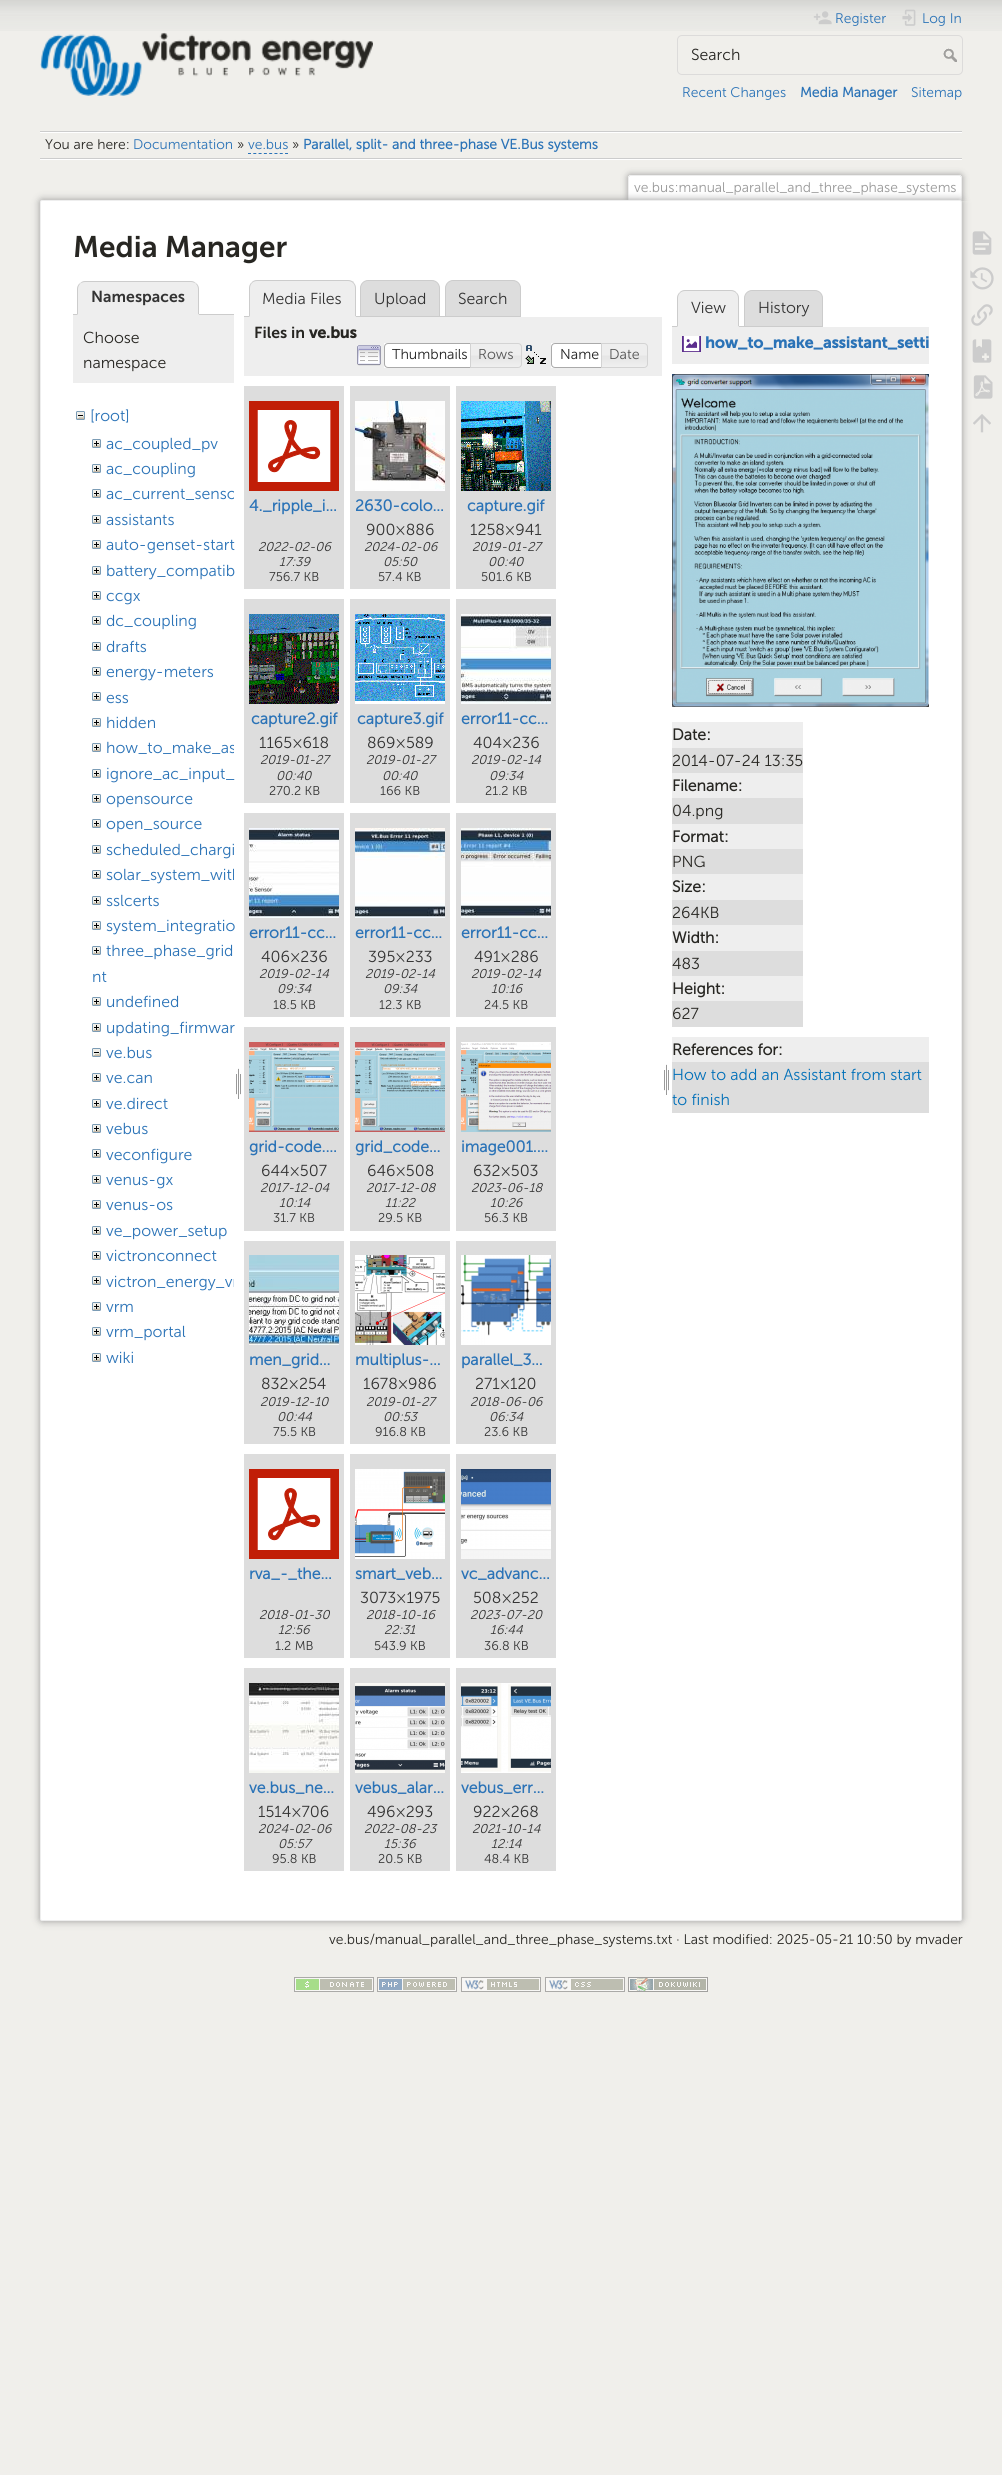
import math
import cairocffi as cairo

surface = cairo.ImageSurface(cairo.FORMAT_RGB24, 1002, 2475)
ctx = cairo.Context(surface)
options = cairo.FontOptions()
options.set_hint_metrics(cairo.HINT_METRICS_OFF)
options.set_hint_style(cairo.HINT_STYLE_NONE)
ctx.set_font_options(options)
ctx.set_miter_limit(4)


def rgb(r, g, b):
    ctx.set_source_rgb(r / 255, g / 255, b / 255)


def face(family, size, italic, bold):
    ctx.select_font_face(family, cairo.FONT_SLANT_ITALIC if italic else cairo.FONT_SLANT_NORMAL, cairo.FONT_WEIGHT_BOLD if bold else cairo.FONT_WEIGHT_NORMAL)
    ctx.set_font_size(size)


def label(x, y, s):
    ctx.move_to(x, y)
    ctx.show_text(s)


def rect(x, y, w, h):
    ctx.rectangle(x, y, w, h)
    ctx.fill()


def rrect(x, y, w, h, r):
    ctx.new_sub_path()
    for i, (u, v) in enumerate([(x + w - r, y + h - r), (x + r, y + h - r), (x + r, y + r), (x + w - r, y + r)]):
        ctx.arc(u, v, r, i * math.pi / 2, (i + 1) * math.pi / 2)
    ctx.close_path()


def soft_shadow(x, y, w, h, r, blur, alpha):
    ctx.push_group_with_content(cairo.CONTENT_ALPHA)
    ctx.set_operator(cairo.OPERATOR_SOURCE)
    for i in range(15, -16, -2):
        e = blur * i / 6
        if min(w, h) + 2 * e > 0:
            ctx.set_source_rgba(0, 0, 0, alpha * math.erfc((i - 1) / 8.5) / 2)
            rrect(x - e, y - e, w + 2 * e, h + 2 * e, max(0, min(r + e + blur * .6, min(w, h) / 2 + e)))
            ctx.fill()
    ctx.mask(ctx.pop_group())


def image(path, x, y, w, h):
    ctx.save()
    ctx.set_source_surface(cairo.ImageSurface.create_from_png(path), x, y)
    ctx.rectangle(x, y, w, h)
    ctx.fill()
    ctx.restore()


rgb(240, 239, 235)
ctx.paint()
image('image0.png', 0, 0, 1002, 31)
image('image1.png', 40, 32, 333, 64)
image('image2.png', 813, 11, 19, 14)
face('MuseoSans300', 13.9, 0, 0)
rgb(43, 115, 183)
label(835, 23, 'Register')
image('image3.png', 902, 9, 14, 17)
label(922, 23, 'Log In')
rrect(677.5, 35.5, 285, 39, 4.5)
rgb(220, 219, 218)
ctx.set_line_width(1)
ctx.stroke()
face('MuseoSans300', 15.9, 0, 0)
rgb(39, 38, 34)
label(691, 60, 'Search')
image('image4.png', 943, 48, 14, 14)
face('MuseoSans300', 13.9, 0, 0)
rgb(43, 115, 183)
label(682, 97, 'Recent Changes')
face('MuseoSans300', 13.9, 0, 1)
label(800, 97, 'Media Manager')
face('MuseoSans300', 13.9, 0, 0)
label(911, 97, 'Sitemap')
rgb(204, 204, 204)
rect(40, 131, 922, 1)
rgb(255, 255, 255)
rect(40, 159, 922, 1)
rect(40, 132, 922, 1)
rgb(204, 204, 204)
rect(40, 158, 922, 1)
rgb(39, 38, 34)
label(45, 149, 'You are here:')
rgb(43, 115, 183)
label(133, 149, 'Documentation')
rgb(39, 38, 34)
label(237, 149, '»')
rgb(43, 115, 183)
label(248, 149, 've.bus')
ctx.new_path()
ctx.move_to(248, 153.5)
ctx.line_to(288, 153.5)
ctx.set_dash([3, 2.29])
ctx.stroke()
rgb(39, 38, 34)
label(292, 149, '»')
face('MuseoSans300', 13.9, 0, 1)
rgb(43, 115, 183)
label(303, 149, 'Parallel, split- and three-phase VE.Bus systems')
ctx.save()
ctx.rectangle(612, 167, 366, 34)
ctx.clip()
rgb(153, 153, 153)
soft_shadow(628, 175, 334, 26, 2, 3.5, 1)
ctx.restore()
rgb(255, 255, 255)
ctx.new_path()
ctx.move_to(630, 176)
ctx.line_to(960, 176)
ctx.curve_to(960.5, 176, 961, 176.5, 961, 177)
ctx.line_to(961, 201)
ctx.line_to(629, 201)
ctx.line_to(629, 177)
ctx.curve_to(629, 176.5, 629.5, 176, 630, 176)
ctx.close_path()
ctx.fill()
rgb(238, 238, 238)
rect(629, 175, 332, 1)
rect(961, 176, 1, 25)
rect(628, 176, 1, 25)
face('MuseoSans300', 13.9, 0, 0)
rgb(153, 153, 153)
label(634, 192, 've.bus:manual_parallel_and_three_phase_systems')
rgb(153, 153, 153)
soft_shadow(40, 200, 922, 1721, 2, 4, 1)
rgb(255, 255, 255)
rrect(40.5, 200.5, 921, 1720, 1.5)
ctx.fill_preserve()
rgb(238, 238, 238)
ctx.set_dash([])
ctx.stroke()
face('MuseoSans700', 29.75, 0, 0)
rgb(39, 38, 34)
label(73, 257, 'Media Manager')
rgb(204, 204, 204)
rect(73, 314, 161, 1)
rgb(238, 238, 238)
ctx.new_path()
ctx.move_to(85, 281)
ctx.line_to(191, 281)
ctx.curve_to(195.5, 281, 199, 284.5, 199, 289)
ctx.line_to(199, 315)
ctx.line_to(77, 315)
ctx.line_to(77, 289)
ctx.curve_to(77, 284.5, 80.5, 281, 85, 281)
ctx.close_path()
ctx.fill()
rgb(204, 204, 204)
ctx.new_path()
ctx.move_to(85, 281)
ctx.curve_to(83, 281, 81, 282, 80, 284)
ctx.curve_to(81, 283, 83, 282, 85, 282)
ctx.line_to(191, 282)
ctx.curve_to(193, 282, 195, 283, 196, 284)
ctx.curve_to(195, 282, 193, 281, 191, 281)
ctx.close_path()
ctx.fill()
ctx.new_path()
ctx.move_to(199, 315)
ctx.line_to(199, 289)
ctx.curve_to(199, 287, 198, 285, 196.5, 283.5)
ctx.line_to(196, 284)
ctx.curve_to(197, 285, 198, 287, 198, 289)
ctx.line_to(198, 314)
ctx.close_path()
ctx.fill()
rgb(238, 238, 238)
ctx.new_path()
ctx.move_to(199, 315)
ctx.line_to(198, 314)
ctx.line_to(78, 314)
ctx.line_to(77, 315)
ctx.close_path()
ctx.fill()
rgb(204, 204, 204)
ctx.new_path()
ctx.move_to(77, 315)
ctx.line_to(78, 314)
ctx.line_to(78, 289)
ctx.curve_to(78, 287, 79, 285, 80, 284)
ctx.line_to(79.5, 283.5)
ctx.curve_to(78, 285, 77, 287, 77, 289)
ctx.close_path()
ctx.fill()
face('MuseoSans700', 15.9, 0, 0)
rgb(51, 51, 51)
label(91, 302, 'Namespaces')
rgb(238, 238, 238)
rect(73, 315, 161, 68)
face('MuseoSans300', 15.9, 0, 0)
rgb(39, 38, 34)
label(83, 343, 'Choose')
label(83, 368, 'namespace')
image('image5.png', 76, 411, 9, 9)
rgb(43, 115, 183)
label(90, 421, '[root]')
image('image6.png', 92, 439, 9, 9)
label(106, 449, 'ac_coupled_pv')
image('image6.png', 92, 464, 9, 9)
label(106, 474, 'ac_coupling')
image('image6.png', 92, 489, 9, 9)
ctx.save()
ctx.rectangle(73, 393, 161, 1485)
ctx.clip()
label(106, 499, 'ac_current_senso')
ctx.restore()
image('image6.png', 92, 515, 9, 9)
label(106, 525, 'assistants')
image('image6.png', 92, 540, 9, 9)
label(106, 550, 'auto-genset-start')
image('image6.png', 92, 566, 9, 9)
label(106, 576, 'battery_compatib')
image('image6.png', 92, 591, 9, 9)
label(106, 601, 'ccgx')
image('image6.png', 92, 616, 9, 9)
label(106, 626, 'dc_coupling')
image('image6.png', 92, 642, 9, 9)
label(106, 652, 'drafts')
image('image6.png', 92, 667, 9, 9)
label(106, 677, 'energy-meters')
image('image6.png', 92, 692, 9, 9)
label(106, 703, 'ess')
image('image6.png', 92, 718, 9, 9)
label(106, 728, 'hidden')
image('image6.png', 92, 743, 9, 9)
ctx.save()
ctx.rectangle(73, 393, 161, 1485)
ctx.clip()
label(106, 753, 'how_to_make_as')
ctx.restore()
image('image6.png', 92, 769, 9, 9)
label(106, 779, 'ignore_ac_input_')
image('image6.png', 92, 794, 9, 9)
label(106, 804, 'opensource')
image('image6.png', 92, 819, 9, 9)
label(106, 829, 'open_source')
image('image6.png', 92, 845, 9, 9)
label(106, 855, 'scheduled_chargi')
image('image6.png', 92, 870, 9, 9)
ctx.save()
ctx.rectangle(73, 393, 161, 1485)
ctx.clip()
label(106, 880, 'solar_system_with')
ctx.restore()
image('image6.png', 92, 896, 9, 9)
label(106, 906, 'sslcerts')
image('image6.png', 92, 921, 9, 9)
label(106, 931, 'system_integratio')
image('image6.png', 92, 946, 9, 9)
label(106, 956, 'three_phase_grid')
label(92, 982, 'nt')
image('image6.png', 92, 997, 9, 9)
label(106, 1007, 'undefined')
image('image6.png', 92, 1023, 9, 9)
label(106, 1033, 'updating_firmwar')
image('image5.png', 92, 1048, 9, 9)
label(106, 1058, 've.bus')
image('image6.png', 92, 1073, 9, 9)
label(106, 1083, 've.can')
image('image6.png', 92, 1099, 9, 9)
label(106, 1109, 've.direct')
image('image6.png', 92, 1124, 9, 9)
label(106, 1134, 'vebus')
image('image6.png', 92, 1149, 9, 9)
label(106, 1160, 'veconfigure')
image('image6.png', 92, 1175, 9, 9)
label(106, 1185, 'venus-gx')
image('image6.png', 92, 1200, 9, 9)
label(106, 1210, 'venus-os')
image('image6.png', 92, 1226, 9, 9)
label(106, 1236, 've_power_setup')
image('image6.png', 92, 1251, 9, 9)
label(106, 1261, 'victronconnect')
image('image6.png', 92, 1276, 9, 9)
ctx.save()
ctx.rectangle(73, 393, 161, 1485)
ctx.clip()
label(106, 1287, 'victron_energy_vr')
ctx.restore()
image('image6.png', 92, 1302, 9, 9)
label(106, 1312, 'vrm')
image('image6.png', 92, 1327, 9, 9)
label(106, 1337, 'vrm_portal')
image('image6.png', 92, 1353, 9, 9)
label(106, 1363, 'wiki')
image('image7.png', 236, 1068, 5, 31)
rgb(221, 221, 221)
ctx.new_path()
ctx.move_to(368, 280.5)
ctx.line_to(432, 280.5)
ctx.curve_to(436, 280.5, 439.5, 284, 439.5, 288)
ctx.line_to(439.5, 316.5)
ctx.line_to(360.5, 316.5)
ctx.line_to(360.5, 288)
ctx.curve_to(360.5, 284, 364, 280.5, 368, 280.5)
ctx.close_path()
ctx.fill_preserve()
rgb(204, 204, 204)
ctx.stroke()
rect(244, 316, 201, 1)
rgb(238, 238, 238)
ctx.new_path()
ctx.move_to(257, 280)
ctx.line_to(348, 280)
ctx.curve_to(352.5, 280, 356, 283.5, 356, 288)
ctx.line_to(356, 317)
ctx.line_to(249, 317)
ctx.line_to(249, 288)
ctx.curve_to(249, 283.5, 252.5, 280, 257, 280)
ctx.close_path()
ctx.fill()
rgb(204, 204, 204)
ctx.new_path()
ctx.move_to(257, 280)
ctx.curve_to(255, 280, 253, 281, 252, 282)
ctx.line_to(252, 283)
ctx.curve_to(253, 282, 255, 281, 257, 281)
ctx.line_to(348, 281)
ctx.curve_to(350, 281, 352, 282, 353, 283)
ctx.line_to(354, 282)
ctx.curve_to(352, 281, 350, 280, 348, 280)
ctx.close_path()
ctx.fill()
ctx.new_path()
ctx.move_to(356, 317)
ctx.line_to(356, 288)
ctx.curve_to(356, 286, 355, 284, 353.5, 282.5)
ctx.line_to(353, 283)
ctx.curve_to(354, 284, 355, 286, 355, 288)
ctx.line_to(355, 316)
ctx.close_path()
ctx.fill()
rgb(238, 238, 238)
ctx.new_path()
ctx.move_to(356, 317)
ctx.line_to(355, 316)
ctx.line_to(250, 316)
ctx.line_to(249, 317)
ctx.close_path()
ctx.fill()
rgb(204, 204, 204)
ctx.new_path()
ctx.move_to(249, 317)
ctx.line_to(250, 316)
ctx.line_to(250, 288)
ctx.curve_to(250, 286, 251, 284, 252, 283)
ctx.line_to(251.5, 282.5)
ctx.curve_to(250, 284, 249, 286, 249, 288)
ctx.close_path()
ctx.fill()
rgb(51, 51, 51)
label(262, 304, 'Media Files')
label(374, 304, 'Upload')
rgb(221, 221, 221)
ctx.new_path()
ctx.move_to(453, 280.5)
ctx.line_to(513, 280.5)
ctx.curve_to(517, 280.5, 520.5, 284, 520.5, 288)
ctx.line_to(520.5, 316.5)
ctx.line_to(445.5, 316.5)
ctx.line_to(445.5, 288)
ctx.curve_to(445.5, 284, 449, 280.5, 453, 280.5)
ctx.close_path()
ctx.fill_preserve()
rgb(204, 204, 204)
ctx.stroke()
rgb(51, 51, 51)
label(458, 304, 'Search')
rgb(238, 238, 238)
rect(244, 317, 418, 59)
face('MuseoSans700', 15.9, 0, 0)
rgb(39, 38, 34)
label(254, 338, 'Files in')
face('MuseoSans700', 15.9, 0, 1)
label(309, 338, 've.bus')
image('image8.png', 357, 345, 24, 21)
rgb(255, 255, 255)
rect(384, 343, 86, 25)
ctx.new_path()
ctx.move_to(388, 343.5)
ctx.line_to(475.5, 343.5)
ctx.line_to(475.5, 367.5)
ctx.line_to(388, 367.5)
ctx.curve_to(386, 367.5, 384.5, 366, 384.5, 364)
ctx.line_to(384.5, 347)
ctx.curve_to(384.5, 345, 386, 343.5, 388, 343.5)
ctx.close_path()
rgb(170, 170, 170)
ctx.stroke()
face('MuseoSans300', 14.25, 0, 0)
rgb(33, 33, 33)
label(392, 359, 'Thumbnails')
image('image9.png', 471, 343, 51, 25)
ctx.new_path()
ctx.move_to(470.5, 343.5)
ctx.line_to(518, 343.5)
ctx.curve_to(520, 343.5, 521.5, 345, 521.5, 347)
ctx.line_to(521.5, 364)
ctx.curve_to(521.5, 366, 520, 367.5, 518, 367.5)
ctx.line_to(470.5, 367.5)
ctx.close_path()
rgb(211, 211, 211)
ctx.stroke()
rgb(85, 85, 85)
label(478, 359, 'Rows')
image('image10.png', 525, 345, 21, 19)
rgb(255, 255, 255)
rect(551, 343, 50, 25)
ctx.new_path()
ctx.move_to(555, 343.5)
ctx.line_to(606.5, 343.5)
ctx.line_to(606.5, 367.5)
ctx.line_to(555, 367.5)
ctx.curve_to(553, 367.5, 551.5, 366, 551.5, 364)
ctx.line_to(551.5, 347)
ctx.curve_to(551.5, 345, 553, 343.5, 555, 343.5)
ctx.close_path()
rgb(170, 170, 170)
ctx.stroke()
rgb(33, 33, 33)
label(560, 359, 'Name')
image('image11.png', 602, 343, 46, 25)
ctx.new_path()
ctx.move_to(601.5, 343.5)
ctx.line_to(644, 343.5)
ctx.curve_to(646, 343.5, 647.5, 345, 647.5, 347)
ctx.line_to(647.5, 364)
ctx.curve_to(647.5, 366, 646, 367.5, 644, 367.5)
ctx.line_to(601.5, 367.5)
ctx.close_path()
rgb(211, 211, 211)
ctx.stroke()
rgb(85, 85, 85)
label(609, 359, 'Date')
rgb(221, 221, 221)
rect(244, 386, 100, 203)
image('image12.png', 249, 401, 90, 90)
face('MuseoSans300', 15.9, 0, 1)
rgb(43, 115, 183)
label(249, 511, '4._ripple_i…')
face('MuseoSans300', 12.75, 1, 0)
rgb(51, 51, 51)
label(258, 551, '2022-02-06')
label(279, 566, '17:39')
face('MuseoSans300', 12.75, 0, 0)
label(269, 581, '756.7 KB')
rgb(221, 221, 221)
rect(350, 386, 100, 203)
image('image13.png', 355, 401, 90, 90)
face('MuseoSans300', 15.9, 0, 1)
rgb(43, 115, 183)
label(355, 511, '2630-colo…')
face('MuseoSans300', 15.9, 0, 0)
rgb(51, 51, 51)
label(366, 535, '900×886')
face('MuseoSans300', 12.75, 1, 0)
label(364, 551, '2024-02-06')
label(383, 566, '05:50')
face('MuseoSans300', 12.75, 0, 0)
label(378, 581, '57.4 KB')
rgb(221, 221, 221)
rect(456, 386, 100, 203)
image('image14.png', 461, 401, 90, 90)
face('MuseoSans300', 15.9, 0, 1)
rgb(43, 115, 183)
label(467, 511, 'capture.gif')
face('MuseoSans300', 15.9, 0, 0)
rgb(51, 51, 51)
label(470, 535, '1258×941')
face('MuseoSans300', 12.75, 1, 0)
label(472, 551, '2019-01-27')
label(488, 566, '00:40')
face('MuseoSans300', 12.75, 0, 0)
label(481, 581, '501.6 KB')
rgb(221, 221, 221)
rect(244, 599, 100, 204)
image('image15.png', 249, 614, 90, 90)
face('MuseoSans300', 15.9, 0, 1)
rgb(43, 115, 183)
label(251, 724, 'capture2.gif')
face('MuseoSans300', 15.9, 0, 0)
rgb(51, 51, 51)
label(259, 748, '1165×618')
face('MuseoSans300', 12.75, 1, 0)
label(260, 764, '2019-01-27')
label(276, 780, '00:40')
face('MuseoSans300', 12.75, 0, 0)
label(269, 795, '270.2 KB')
rgb(221, 221, 221)
rect(350, 599, 100, 204)
image('image16.png', 355, 614, 90, 90)
face('MuseoSans300', 15.9, 0, 1)
rgb(43, 115, 183)
label(357, 724, 'capture3.gif')
face('MuseoSans300', 15.9, 0, 0)
rgb(51, 51, 51)
label(367, 748, '869×589')
face('MuseoSans300', 12.75, 1, 0)
label(366, 764, '2019-01-27')
label(382, 780, '00:40')
face('MuseoSans300', 12.75, 0, 0)
label(380, 795, '166 KB')
rgb(221, 221, 221)
rect(456, 599, 100, 204)
image('image17.png', 461, 614, 90, 90)
face('MuseoSans300', 15.9, 0, 1)
rgb(43, 115, 183)
label(461, 724, 'error11-cc…')
face('MuseoSans300', 15.9, 0, 0)
rgb(51, 51, 51)
label(473, 748, '404×236')
face('MuseoSans300', 12.75, 1, 0)
label(471, 764, '2019-02-14')
label(489, 780, '09:34')
face('MuseoSans300', 12.75, 0, 0)
label(485, 795, '21.2 KB')
rgb(221, 221, 221)
rect(244, 813, 100, 204)
image('image18.png', 249, 828, 90, 90)
face('MuseoSans300', 15.9, 0, 1)
rgb(43, 115, 183)
label(249, 938, 'error11-cc…')
face('MuseoSans300', 15.9, 0, 0)
rgb(51, 51, 51)
label(261, 962, '406×236')
face('MuseoSans300', 12.75, 1, 0)
label(259, 978, '2019-02-14')
label(277, 993, '09:34')
face('MuseoSans300', 12.75, 0, 0)
label(273, 1009, '18.5 KB')
rgb(221, 221, 221)
rect(350, 813, 100, 204)
image('image19.png', 355, 828, 90, 90)
face('MuseoSans300', 15.9, 0, 1)
rgb(43, 115, 183)
label(355, 938, 'error11-cc…')
face('MuseoSans300', 15.9, 0, 0)
rgb(51, 51, 51)
label(368, 962, '395×233')
face('MuseoSans300', 12.75, 1, 0)
label(365, 978, '2019-02-14')
label(383, 993, '09:34')
face('MuseoSans300', 12.75, 0, 0)
label(379, 1009, '12.3 KB')
rgb(221, 221, 221)
rect(456, 813, 100, 204)
image('image20.png', 461, 828, 90, 90)
face('MuseoSans300', 15.9, 0, 1)
rgb(43, 115, 183)
label(461, 938, 'error11-cc…')
face('MuseoSans300', 15.9, 0, 0)
rgb(51, 51, 51)
label(474, 962, '491×286')
face('MuseoSans300', 12.75, 1, 0)
label(471, 978, '2019-02-14')
label(491, 993, '10:16')
face('MuseoSans300', 12.75, 0, 0)
label(484, 1009, '24.5 KB')
rgb(221, 221, 221)
rect(244, 1027, 100, 204)
image('image21.png', 249, 1042, 90, 90)
face('MuseoSans300', 15.9, 0, 1)
rgb(43, 115, 183)
label(249, 1152, 'grid-code.…')
face('MuseoSans300', 15.9, 0, 0)
rgb(51, 51, 51)
label(261, 1176, '644×507')
face('MuseoSans300', 12.75, 1, 0)
label(260, 1192, '2017-12-04')
label(279, 1207, '10:14')
face('MuseoSans300', 12.75, 0, 0)
label(273, 1222, '31.7 KB')
rgb(221, 221, 221)
rect(350, 1027, 100, 204)
image('image22.png', 355, 1042, 90, 90)
face('MuseoSans300', 15.9, 0, 1)
rgb(43, 115, 183)
label(355, 1152, 'grid_code…')
face('MuseoSans300', 15.9, 0, 0)
rgb(51, 51, 51)
label(367, 1176, '646×508')
face('MuseoSans300', 12.75, 1, 0)
label(366, 1192, '2017-12-08')
label(385, 1207, '11:22')
face('MuseoSans300', 12.75, 0, 0)
label(378, 1222, '29.5 KB')
rgb(221, 221, 221)
rect(456, 1027, 100, 204)
image('image23.png', 461, 1042, 90, 90)
face('MuseoSans300', 15.9, 0, 1)
rgb(43, 115, 183)
label(461, 1152, 'image001.…')
face('MuseoSans300', 15.9, 0, 0)
rgb(51, 51, 51)
label(473, 1176, '632×503')
face('MuseoSans300', 12.75, 1, 0)
label(471, 1192, '2023-06-18')
label(490, 1207, '10:26')
face('MuseoSans300', 12.75, 0, 0)
label(484, 1222, '56.3 KB')
rgb(221, 221, 221)
rect(244, 1241, 100, 203)
image('image24.png', 249, 1255, 90, 90)
face('MuseoSans300', 15.9, 0, 1)
rgb(43, 115, 183)
label(249, 1365, 'men_grid…')
face('MuseoSans300', 15.9, 0, 0)
rgb(51, 51, 51)
label(261, 1389, '832×254')
face('MuseoSans300', 12.75, 1, 0)
label(260, 1406, '2019-12-10')
label(277, 1421, '00:44')
face('MuseoSans300', 12.75, 0, 0)
label(273, 1436, '75.5 KB')
rgb(221, 221, 221)
rect(350, 1241, 100, 203)
image('image25.png', 355, 1255, 90, 90)
face('MuseoSans300', 15.9, 0, 1)
rgb(43, 115, 183)
label(355, 1365, 'multiplus-…')
face('MuseoSans300', 15.9, 0, 0)
rgb(51, 51, 51)
label(363, 1389, '1678×986')
face('MuseoSans300', 12.75, 1, 0)
label(366, 1406, '2019-01-27')
label(383, 1421, '00:53')
face('MuseoSans300', 12.75, 0, 0)
label(375, 1436, '916.8 KB')
rgb(221, 221, 221)
rect(456, 1241, 100, 203)
image('image26.png', 461, 1255, 90, 90)
face('MuseoSans300', 15.9, 0, 1)
rgb(43, 115, 183)
label(461, 1365, 'parallel_3…')
face('MuseoSans300', 15.9, 0, 0)
rgb(51, 51, 51)
label(475, 1389, '271×120')
face('MuseoSans300', 12.75, 1, 0)
label(470, 1406, '2018-06-06')
label(489, 1421, '06:34')
face('MuseoSans300', 12.75, 0, 0)
label(484, 1436, '23.6 KB')
rgb(221, 221, 221)
rect(244, 1454, 100, 204)
image('image12.png', 249, 1469, 90, 90)
face('MuseoSans300', 15.9, 0, 1)
rgb(43, 115, 183)
label(249, 1579, 'rva_-_the…')
face('MuseoSans300', 12.75, 1, 0)
rgb(51, 51, 51)
label(259, 1619, '2018-01-30')
label(278, 1634, '12:56')
face('MuseoSans300', 12.75, 0, 0)
label(275, 1650, '1.2 MB')
rgb(221, 221, 221)
rect(350, 1454, 100, 204)
image('image27.png', 355, 1469, 90, 90)
face('MuseoSans300', 15.9, 0, 1)
rgb(43, 115, 183)
label(355, 1579, 'smart_veb…')
face('MuseoSans300', 15.9, 0, 0)
rgb(51, 51, 51)
label(360, 1603, '3073×1975')
face('MuseoSans300', 12.75, 1, 0)
label(366, 1619, '2018-10-16')
label(384, 1634, '22:31')
face('MuseoSans300', 12.75, 0, 0)
label(374, 1650, '543.9 KB')
rgb(221, 221, 221)
rect(456, 1454, 100, 204)
image('image28.png', 461, 1469, 90, 90)
face('MuseoSans300', 15.9, 0, 1)
rgb(43, 115, 183)
label(461, 1579, 'vc_advanc…')
face('MuseoSans300', 15.9, 0, 0)
rgb(51, 51, 51)
label(473, 1603, '508×252')
face('MuseoSans300', 12.75, 1, 0)
label(470, 1619, '2023-07-20')
label(490, 1634, '16:44')
face('MuseoSans300', 12.75, 0, 0)
label(484, 1650, '36.8 KB')
rgb(221, 221, 221)
rect(244, 1668, 100, 203)
image('image29.png', 249, 1683, 90, 90)
face('MuseoSans300', 15.9, 0, 1)
rgb(43, 115, 183)
label(249, 1793, 've.bus_ne…')
face('MuseoSans300', 15.9, 0, 0)
rgb(51, 51, 51)
label(258, 1817, '1514×706')
face('MuseoSans300', 12.75, 1, 0)
label(258, 1833, '2024-02-06')
label(278, 1848, '05:57')
face('MuseoSans300', 12.75, 0, 0)
label(272, 1863, '95.8 KB')
rgb(221, 221, 221)
rect(350, 1668, 100, 203)
image('image30.png', 355, 1683, 90, 90)
face('MuseoSans300', 15.9, 0, 1)
rgb(43, 115, 183)
label(355, 1793, 'vebus_alar…')
face('MuseoSans300', 15.9, 0, 0)
rgb(51, 51, 51)
label(367, 1817, '496×293')
face('MuseoSans300', 12.75, 1, 0)
label(364, 1833, '2022-08-23')
label(384, 1848, '15:36')
face('MuseoSans300', 12.75, 0, 0)
label(378, 1863, '20.5 KB')
rgb(221, 221, 221)
rect(456, 1668, 100, 203)
image('image31.png', 461, 1683, 90, 90)
face('MuseoSans300', 15.9, 0, 1)
rgb(43, 115, 183)
label(461, 1793, 'vebus_err…')
face('MuseoSans300', 15.9, 0, 0)
rgb(51, 51, 51)
label(473, 1817, '922×268')
face('MuseoSans300', 12.75, 1, 0)
label(472, 1833, '2021-10-14')
label(491, 1848, '12:14')
face('MuseoSans300', 12.75, 0, 0)
label(484, 1863, '48.4 KB')
image('image7.png', 664, 1064, 5, 31)
rgb(204, 204, 204)
rect(672, 326, 72, 1)
rgb(238, 238, 238)
ctx.new_path()
ctx.move_to(685, 290)
ctx.line_to(731, 290)
ctx.curve_to(735.5, 290, 739, 293.5, 739, 298)
ctx.line_to(739, 327)
ctx.line_to(677, 327)
ctx.line_to(677, 298)
ctx.curve_to(677, 293.5, 680.5, 290, 685, 290)
ctx.close_path()
ctx.fill()
rgb(204, 204, 204)
ctx.new_path()
ctx.move_to(685, 290)
ctx.curve_to(683, 290, 681, 291, 680, 292)
ctx.line_to(680, 293)
ctx.curve_to(681, 292, 683, 291, 685, 291)
ctx.line_to(731, 291)
ctx.curve_to(733, 291, 735, 292, 736, 293)
ctx.line_to(736, 292)
ctx.curve_to(735, 291, 733, 290, 731, 290)
ctx.close_path()
ctx.move_to(739, 327)
ctx.line_to(739, 298)
ctx.curve_to(739, 296, 738, 294, 736.5, 292.5)
ctx.line_to(736, 293)
ctx.curve_to(737, 294, 738, 296, 738, 298)
ctx.line_to(738, 326)
ctx.close_path()
ctx.fill()
rgb(238, 238, 238)
ctx.new_path()
ctx.move_to(739, 327)
ctx.line_to(738, 326)
ctx.line_to(678, 326)
ctx.line_to(677, 327)
ctx.close_path()
ctx.fill()
rgb(204, 204, 204)
ctx.new_path()
ctx.move_to(677, 327)
ctx.line_to(678, 326)
ctx.line_to(678, 298)
ctx.curve_to(678, 296, 679, 294, 680, 293)
ctx.line_to(679.5, 292.5)
ctx.curve_to(678, 294, 677, 296, 677, 298)
ctx.close_path()
ctx.fill()
face('MuseoSans300', 15.9, 0, 0)
rgb(51, 51, 51)
label(691, 313, 'View')
rgb(221, 221, 221)
ctx.new_path()
ctx.move_to(752, 290.5)
ctx.line_to(815, 290.5)
ctx.curve_to(819, 290.5, 822.5, 294, 822.5, 298)
ctx.line_to(822.5, 326.5)
ctx.line_to(744.5, 326.5)
ctx.line_to(744.5, 298)
ctx.curve_to(744.5, 294, 748, 290.5, 752, 290.5)
ctx.close_path()
ctx.fill_preserve()
rgb(204, 204, 204)
ctx.stroke()
rgb(51, 51, 51)
label(758, 313, 'History')
rgb(238, 238, 238)
rect(672, 327, 257, 37)
image('image32.png', 682, 336, 19, 16)
face('MuseoSans700', 15.9, 0, 1)
rgb(43, 115, 183)
label(705, 348, 'how_to_make_assistant_setti')
image('image33.png', 672, 374, 257, 333)
rgb(238, 238, 238)
rect(672, 722, 131, 26)
face('MuseoSans300', 15.9, 0, 1)
rgb(39, 38, 34)
label(672, 740, 'Date:')
rgb(221, 221, 221)
rect(672, 748, 131, 25)
face('MuseoSans300', 15.9, 0, 0)
rgb(39, 38, 34)
label(672, 766, '2014-07-24 13:35')
rgb(238, 238, 238)
rect(672, 773, 131, 25)
face('MuseoSans300', 15.9, 0, 1)
rgb(39, 38, 34)
label(672, 791, 'Filename:')
rgb(221, 221, 221)
rect(672, 798, 131, 26)
face('MuseoSans300', 15.9, 0, 0)
rgb(39, 38, 34)
label(672, 816, '04.png')
rgb(238, 238, 238)
rect(672, 824, 131, 25)
face('MuseoSans300', 15.9, 0, 1)
rgb(39, 38, 34)
label(672, 842, 'Format:')
rgb(221, 221, 221)
rect(672, 849, 131, 25)
face('MuseoSans300', 15.9, 0, 0)
rgb(39, 38, 34)
label(672, 867, 'PNG')
rgb(238, 238, 238)
rect(672, 874, 131, 26)
face('MuseoSans300', 15.9, 0, 1)
rgb(39, 38, 34)
label(672, 892, 'Size:')
rgb(221, 221, 221)
rect(672, 900, 131, 25)
face('MuseoSans300', 15.9, 0, 0)
rgb(39, 38, 34)
label(672, 918, '264KB')
rgb(238, 238, 238)
rect(672, 925, 131, 26)
face('MuseoSans300', 15.9, 0, 1)
rgb(39, 38, 34)
label(672, 943, 'Width:')
rgb(221, 221, 221)
rect(672, 951, 131, 25)
face('MuseoSans300', 15.9, 0, 0)
rgb(39, 38, 34)
label(672, 969, '483')
rgb(238, 238, 238)
rect(672, 976, 131, 25)
face('MuseoSans300', 15.9, 0, 1)
rgb(39, 38, 34)
label(672, 994, 'Height:')
rgb(221, 221, 221)
rect(672, 1001, 131, 26)
face('MuseoSans300', 15.9, 0, 0)
rgb(39, 38, 34)
label(672, 1019, '627')
rgb(238, 238, 238)
rect(672, 1037, 257, 25)
face('MuseoSans300', 15.9, 0, 1)
rgb(39, 38, 34)
label(672, 1055, 'References for:')
rgb(221, 221, 221)
rect(672, 1062, 257, 51)
face('MuseoSans300', 15.9, 0, 0)
rgb(1, 112, 185)
label(672, 1080, 'How to add an Assistant from start')
label(672, 1105, 'to finish')
face('MuseoSans300', 13.9, 0, 0)
rgb(39, 38, 34)
label(329, 1944, 've.bus/manual_parallel_and_three_phase_systems.txt')
label(676, 1944, '· Last modified: 2025-05-21 10:50 by mvader')
image('image34.png', 972, 231, 20, 24)
image('image35.png', 970, 267, 24, 23)
image('image36.png', 971, 304, 22, 22)
image('image37.png', 972, 339, 20, 24)
image('image38.png', 973, 375, 20, 24)
image('image39.png', 973, 414, 18, 19)
image('image40.png', 294, 1977, 80, 15)
image('image41.png', 377, 1977, 80, 15)
image('image42.png', 461, 1977, 80, 15)
image('image43.png', 545, 1977, 80, 15)
image('image44.png', 628, 1977, 80, 15)
surface.write_to_png('render.png')
